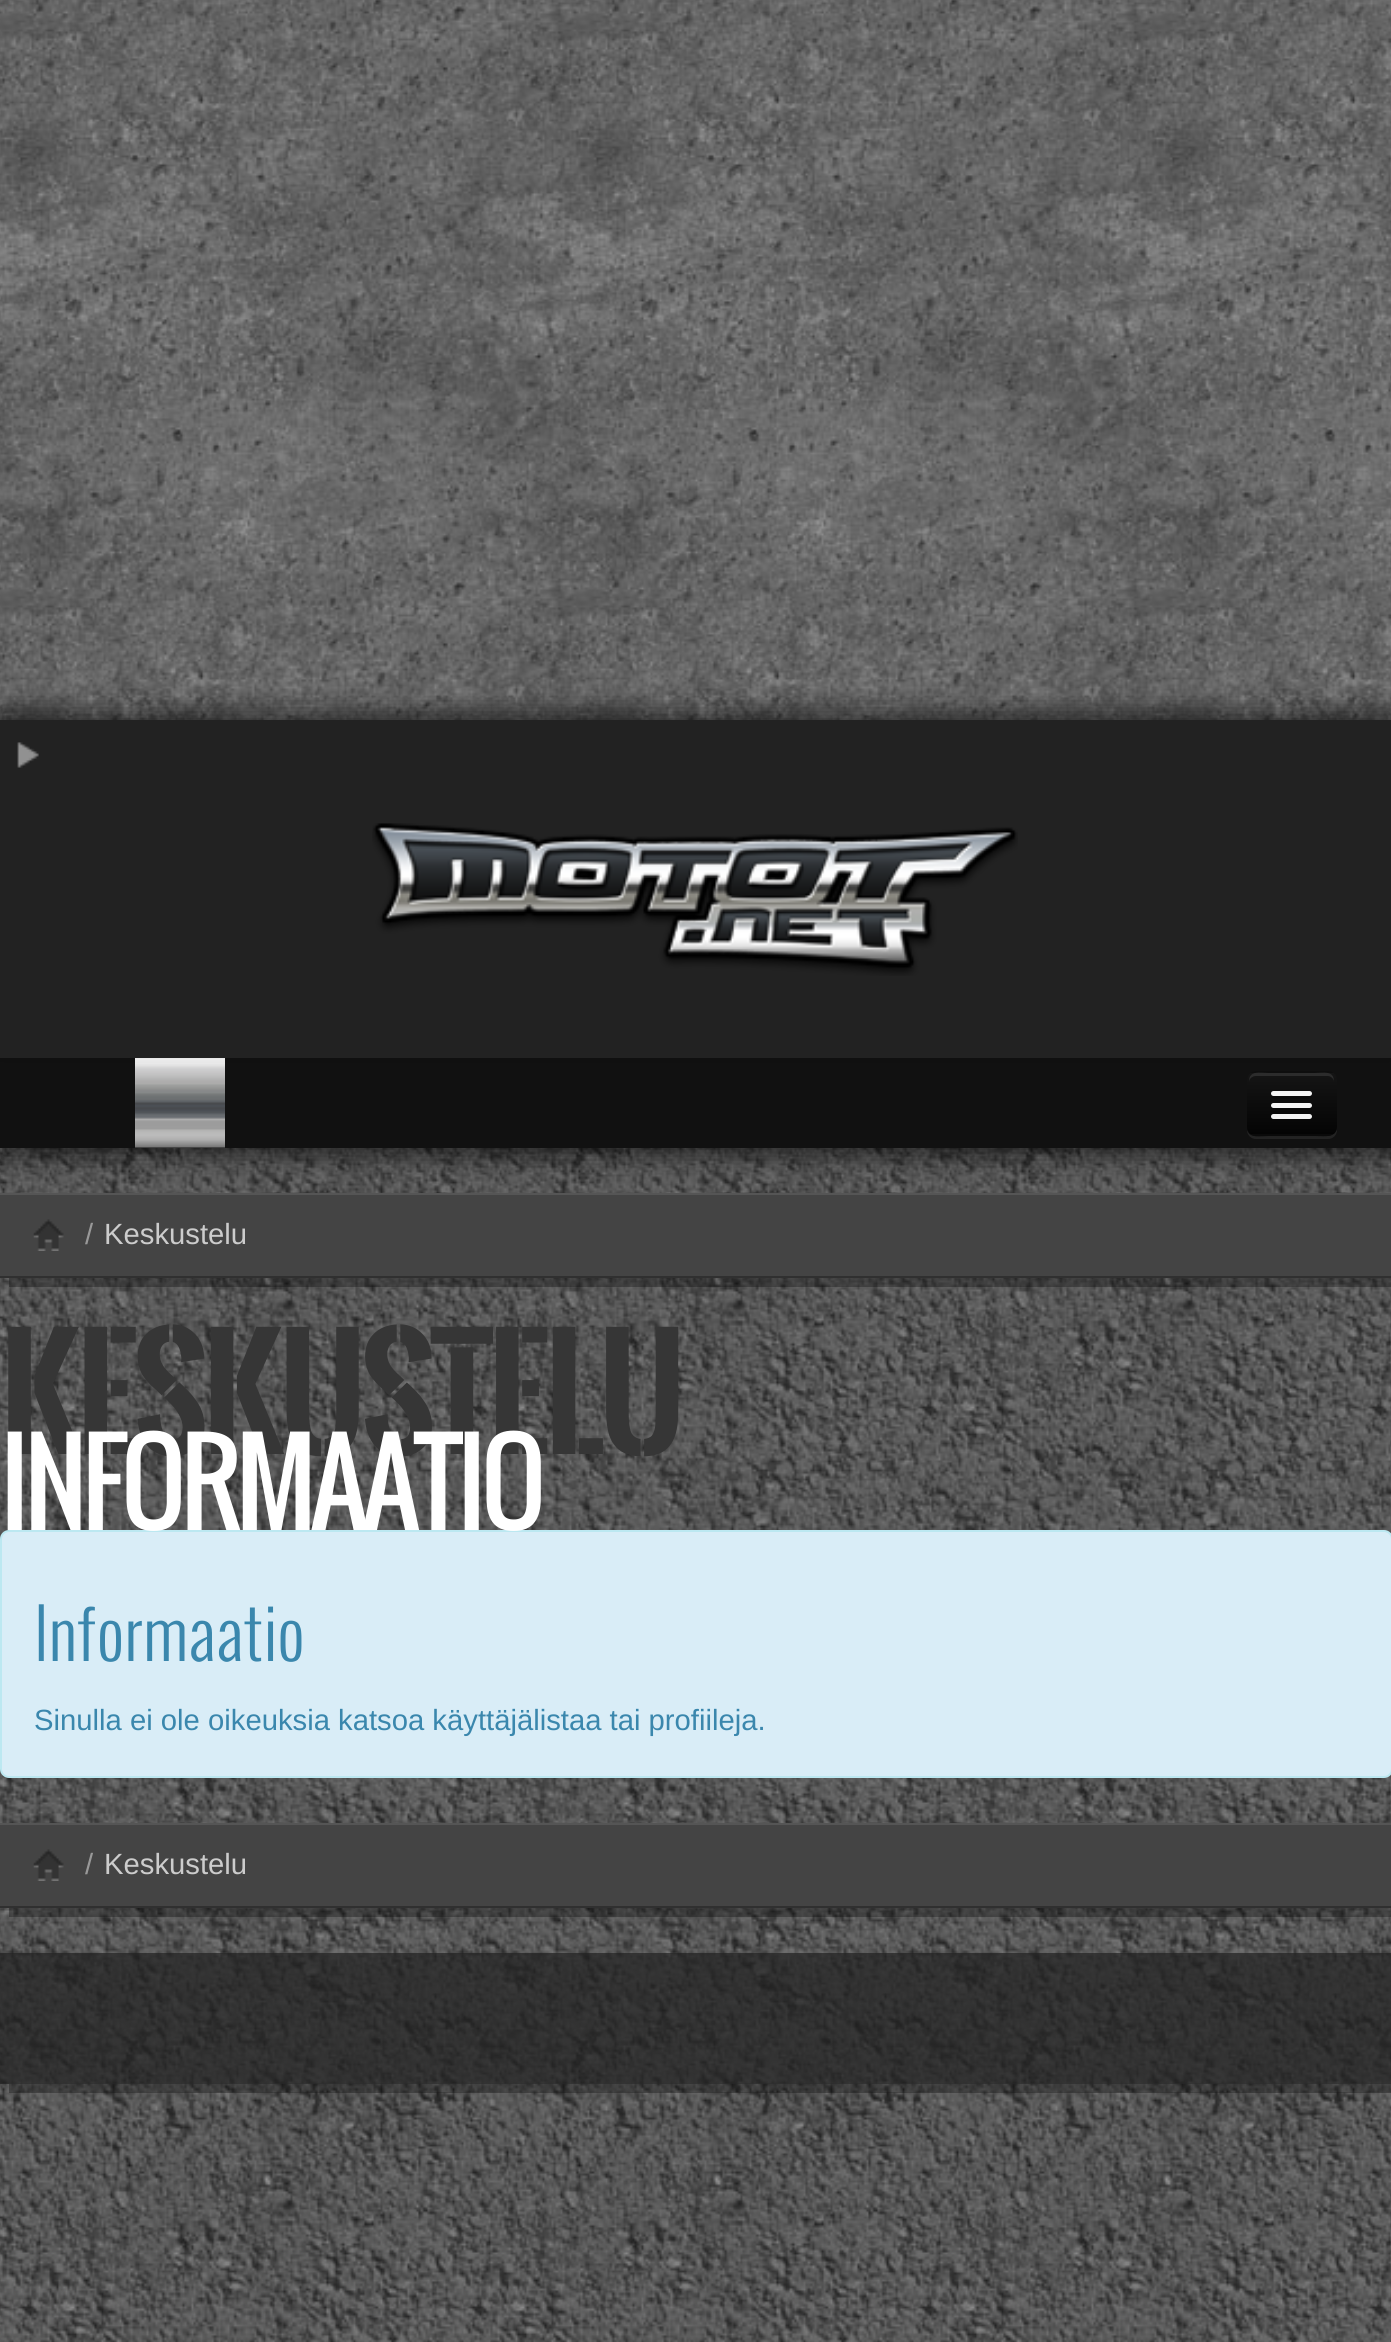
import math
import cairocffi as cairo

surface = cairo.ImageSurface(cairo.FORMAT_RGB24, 1391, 2342)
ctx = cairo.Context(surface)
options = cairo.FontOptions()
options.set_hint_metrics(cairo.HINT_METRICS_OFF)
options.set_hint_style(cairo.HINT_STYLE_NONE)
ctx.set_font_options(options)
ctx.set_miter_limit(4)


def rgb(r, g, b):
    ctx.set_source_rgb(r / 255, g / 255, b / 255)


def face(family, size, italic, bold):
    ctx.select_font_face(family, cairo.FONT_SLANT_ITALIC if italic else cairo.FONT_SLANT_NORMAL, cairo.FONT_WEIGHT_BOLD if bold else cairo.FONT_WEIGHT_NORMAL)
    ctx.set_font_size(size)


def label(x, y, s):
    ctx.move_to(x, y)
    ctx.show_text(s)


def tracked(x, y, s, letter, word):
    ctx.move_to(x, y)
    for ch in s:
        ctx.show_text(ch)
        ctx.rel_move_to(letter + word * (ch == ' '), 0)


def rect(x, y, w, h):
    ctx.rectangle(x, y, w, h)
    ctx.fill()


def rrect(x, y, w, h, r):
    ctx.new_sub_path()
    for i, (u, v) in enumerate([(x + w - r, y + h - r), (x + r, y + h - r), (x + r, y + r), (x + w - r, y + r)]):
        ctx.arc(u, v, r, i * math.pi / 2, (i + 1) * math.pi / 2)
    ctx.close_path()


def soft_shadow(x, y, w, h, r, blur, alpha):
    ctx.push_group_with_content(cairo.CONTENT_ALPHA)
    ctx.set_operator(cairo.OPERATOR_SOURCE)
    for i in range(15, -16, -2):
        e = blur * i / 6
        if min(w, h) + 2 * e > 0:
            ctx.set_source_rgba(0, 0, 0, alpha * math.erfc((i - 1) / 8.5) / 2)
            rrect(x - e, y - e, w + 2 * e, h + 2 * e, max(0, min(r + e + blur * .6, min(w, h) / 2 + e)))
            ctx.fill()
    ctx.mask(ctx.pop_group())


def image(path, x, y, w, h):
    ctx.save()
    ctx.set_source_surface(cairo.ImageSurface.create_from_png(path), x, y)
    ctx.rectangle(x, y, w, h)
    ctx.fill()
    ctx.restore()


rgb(255, 255, 255)
ctx.paint()
image('image0.png', 0, 1148, 1391, 1194)
image('image1.png', 0, 0, 1391, 720)
rgb(0, 0, 0)
soft_shadow(0, 1069, 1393, 90, 0, 11, 0.5)
soft_shadow(0, 1060, 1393, 90, 0, 4.5, 0.07)
rgb(17, 17, 17)
rect(0, 1058, 1391, 90)
image('image4.png', 135, 1058, 90, 90)
rgb(35, 35, 35)
ctx.new_path()
ctx.move_to(1247, 1130)
ctx.curve_to(1247, 1135, 1251, 1139, 1256, 1139)
ctx.line_to(1328, 1139)
ctx.curve_to(1333, 1139, 1337, 1135, 1337, 1130)
ctx.line_to(1337, 1082)
ctx.line_to(1336, 1079)
ctx.line_to(1336, 1129)
ctx.line_to(1335, 1132)
ctx.curve_to(1331, 1138, 1321, 1136, 1316, 1136)
ctx.line_to(1268, 1136)
ctx.curve_to(1261, 1136, 1250, 1139, 1247, 1130)
ctx.close_path()
ctx.fill()
rgb(14, 14, 14)
rrect(1247, 1071, 90, 65, 9)
ctx.fill()
ctx.save()
rrect(1247, 1071, 90, 65, 9)
ctx.clip()
gradient = cairo.LinearGradient(1292, 1073, 1292, 1134)
gradient.add_color_stop_rgba(0, 0.082, 0.082, 0.082, 1)
gradient.add_color_stop_rgba(1, 0.016, 0.016, 0.016, 1)
ctx.set_source(gradient)
rect(1247, 1073, 90, 61)
ctx.restore()
rgb(44, 44, 44)
ctx.new_path()
ctx.move_to(1256, 1076)
ctx.line_to(1328, 1076)
ctx.curve_to(1331, 1076, 1334, 1079, 1334, 1082)
ctx.curve_to(1334, 1070, 1324, 1073, 1315, 1073)
ctx.line_to(1268, 1073)
ctx.curve_to(1259, 1073, 1249, 1070, 1249, 1082)
ctx.curve_to(1249, 1079, 1252, 1076, 1256, 1076)
ctx.close_path()
ctx.fill()
rgb(0, 0, 0)
soft_shadow(0, 709, 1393, 337, 0, 11, 0.5)
rgb(34, 34, 34)
rect(0, 720, 1391, 338)
image('image2.png', 17, 742, 22, 26)
image('image3.png', 372, 823, 646, 153)
ctx.new_path()
ctx.move_to(1333, 1133)
ctx.curve_to(1331.5, 1134.5, 1329.5, 1135, 1327.5, 1135)
ctx.line_to(1255.5, 1135)
ctx.curve_to(1253.5, 1135, 1251.5, 1134.5, 1250, 1133)
ctx.set_source_rgba(0, 0, 0, 0.25)
ctx.set_line_width(2.2)
ctx.stroke()
rgb(11, 11, 11)
ctx.new_path()
ctx.move_to(1272, 1095)
ctx.line_to(1271, 1097)
ctx.curve_to(1272, 1100, 1278, 1099, 1280, 1099)
ctx.line_to(1304, 1099)
ctx.curve_to(1305, 1099, 1311, 1100, 1312, 1097)
ctx.line_to(1311, 1095)
ctx.line_to(1310, 1096)
ctx.line_to(1273, 1096)
ctx.close_path()
ctx.fill()
rgb(245, 245, 245)
rrect(1271, 1091, 41, 5, 2.5)
ctx.fill()
rgb(8, 8, 8)
ctx.new_path()
ctx.move_to(1272, 1106)
ctx.curve_to(1267, 1111, 1279, 1110, 1280, 1110)
ctx.line_to(1304, 1110)
ctx.curve_to(1304, 1110, 1316, 1111, 1311, 1106)
ctx.line_to(1310, 1107)
ctx.line_to(1273, 1107)
ctx.close_path()
ctx.fill()
rgb(245, 245, 245)
rrect(1271, 1103, 41, 5, 2.5)
ctx.fill()
rrect(1271, 1114, 41, 5, 2.5)
ctx.fill()
ctx.set_source_rgba(0, 0, 0, 0.3)
ctx.new_path()
ctx.move_to(9, 1278)
ctx.line_to(9, 1287)
ctx.line_to(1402, 1287)
ctx.line_to(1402, 1202)
ctx.line_to(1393, 1202)
ctx.line_to(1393, 1278)
ctx.close_path()
ctx.fill()
rgb(68, 68, 68)
rect(0, 1195, 1391, 81)
rgb(85, 85, 85)
rect(0, 1193, 1391, 2)
rgb(48, 48, 48)
rect(0, 1276, 1391, 2)
image('image5.png', 33, 1219, 31, 32)
face('Liberation Sans', 29.25, 0, 0)
rgb(153, 153, 153)
label(85, 1244, '/')
rgb(204, 204, 204)
label(104, 1244, 'Keskustelu')
face('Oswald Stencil', 146.25, 0, 1)
rgb(54, 54, 54)
tracked(0, 1454, 'KESKUSTELU', -5.6, 0)
rgb(217, 237, 247)
rrect(1, 1531, 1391, 246, 8)
ctx.fill_preserve()
rgb(188, 232, 241)
ctx.set_line_width(2)
ctx.stroke()
face('Oswald', 112.5, 0, 0)
rgb(255, 255, 255)
tracked(0, 1530, 'INFORMAATIO', -5.6, 0)
face('Oswald Light', 67.5, 0, 0)
rgb(58, 135, 173)
label(34, 1661, 'Informaatio')
face('Liberation Sans', 29.25, 0, 0)
label(34, 1730, 'Sinulla ei ole oikeuksia katsoa käyttäjälistaa tai profiileja.')
ctx.set_source_rgba(0, 0, 0, 0.3)
ctx.new_path()
ctx.move_to(9, 1908)
ctx.line_to(9, 1917)
ctx.line_to(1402, 1917)
ctx.line_to(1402, 1832)
ctx.line_to(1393, 1832)
ctx.line_to(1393, 1908)
ctx.close_path()
ctx.fill()
rgb(68, 68, 68)
rect(0, 1825, 1391, 81)
rgb(85, 85, 85)
rect(0, 1823, 1391, 2)
rgb(48, 48, 48)
rect(0, 1906, 1391, 2)
image('image5.png', 33, 1849, 31, 32)
rgb(153, 153, 153)
label(85, 1874, '/')
rgb(204, 204, 204)
label(104, 1874, 'Keskustelu')
ctx.set_source_rgba(0, 0, 0, 0.3)
ctx.new_path()
ctx.move_to(9, 2084)
ctx.line_to(9, 2093)
ctx.line_to(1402, 2093)
ctx.line_to(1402, 1962)
ctx.line_to(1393, 1962)
ctx.line_to(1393, 2084)
ctx.close_path()
ctx.fill()
ctx.set_source_rgba(0.133, 0.133, 0.133, 0.7)
rect(0, 1953, 1391, 131)
surface.write_to_png('render.png')
